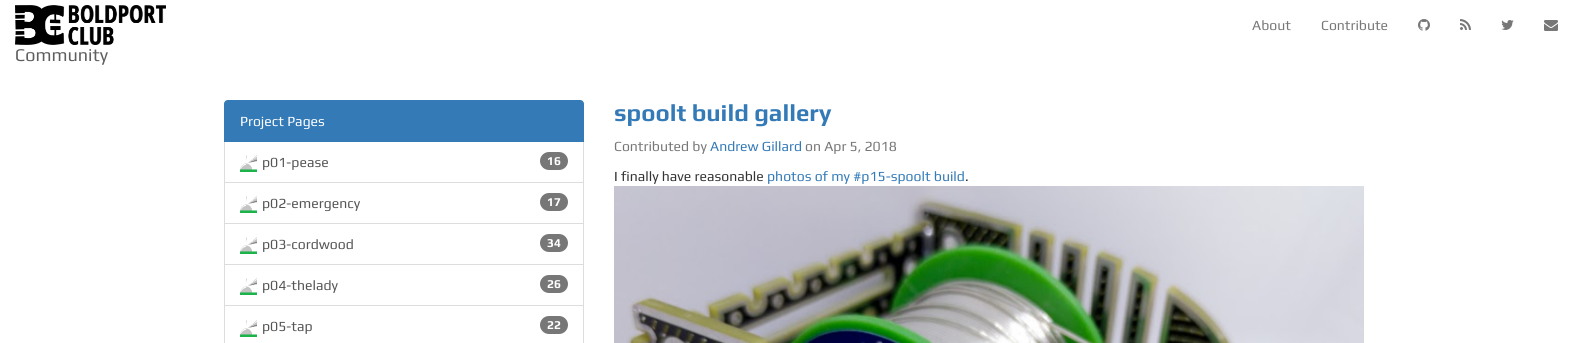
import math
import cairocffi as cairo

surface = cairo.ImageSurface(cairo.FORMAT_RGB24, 1588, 343)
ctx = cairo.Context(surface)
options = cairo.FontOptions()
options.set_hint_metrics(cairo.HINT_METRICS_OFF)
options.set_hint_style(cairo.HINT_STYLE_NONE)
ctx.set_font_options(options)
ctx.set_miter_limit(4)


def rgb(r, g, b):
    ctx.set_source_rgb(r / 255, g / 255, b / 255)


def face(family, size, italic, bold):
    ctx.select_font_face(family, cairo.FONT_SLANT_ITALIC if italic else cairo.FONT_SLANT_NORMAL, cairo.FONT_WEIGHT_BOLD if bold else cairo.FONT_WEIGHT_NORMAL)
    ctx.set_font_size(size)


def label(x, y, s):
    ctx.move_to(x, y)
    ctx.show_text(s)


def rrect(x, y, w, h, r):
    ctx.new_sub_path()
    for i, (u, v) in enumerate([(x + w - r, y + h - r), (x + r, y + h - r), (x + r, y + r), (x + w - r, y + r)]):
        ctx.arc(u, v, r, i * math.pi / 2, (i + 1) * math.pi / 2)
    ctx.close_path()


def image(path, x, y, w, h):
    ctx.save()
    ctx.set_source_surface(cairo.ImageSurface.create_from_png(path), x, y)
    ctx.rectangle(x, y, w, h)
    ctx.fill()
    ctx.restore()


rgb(255, 255, 255)
ctx.paint()
face('Play', 14, 0, 0)
rgb(119, 119, 119)
label(1252, 30, 'About')
label(1321, 30, 'Contribute')
image('image0.png', 1418, 19, 12, 12)
image('image1.png', 1460, 19, 11, 11)
image('image2.png', 1501, 20, 13, 10)
image('image3.png', 1544, 20, 14, 11)
image('image4.png', 15, 5, 151, 40)
face('Play', 18, 0, 0)
rgb(94, 94, 94)
label(15, 61, 'Community')
ctx.rectangle(224.5, 141.5, 359, 41)
rgb(221, 221, 221)
ctx.set_line_width(1)
ctx.stroke()
rgb(51, 122, 183)
ctx.new_path()
ctx.move_to(228, 100.5)
ctx.line_to(580, 100.5)
ctx.curve_to(582, 100.5, 583.5, 102, 583.5, 104)
ctx.line_to(583.5, 141.5)
ctx.line_to(224.5, 141.5)
ctx.line_to(224.5, 104)
ctx.curve_to(224.5, 102, 226, 100.5, 228, 100.5)
ctx.close_path()
ctx.fill_preserve()
ctx.stroke()
face('Play', 14, 0, 0)
rgb(255, 255, 255)
label(240, 126, 'Project Pages')
image('image5.png', 240, 155, 17, 17)
rgb(85, 85, 85)
label(262, 167, 'p01-pease')
rgb(119, 119, 119)
rrect(540, 152, 28, 18, 9)
ctx.fill()
face('Play', 12, 0, 1)
rgb(255, 255, 255)
label(547, 165, '16')
ctx.rectangle(224.5, 182.5, 359, 41)
rgb(221, 221, 221)
ctx.stroke()
image('image5.png', 240, 196, 17, 17)
face('Play', 14, 0, 0)
rgb(85, 85, 85)
label(262, 208, 'p02-emergency')
rgb(119, 119, 119)
rrect(540, 193, 28, 18, 9)
ctx.fill()
face('Play', 12, 0, 1)
rgb(255, 255, 255)
label(547, 206, '17')
ctx.rectangle(224.5, 223.5, 359, 41)
rgb(221, 221, 221)
ctx.stroke()
image('image5.png', 240, 237, 17, 17)
face('Play', 14, 0, 0)
rgb(85, 85, 85)
label(262, 249, 'p03-cordwood')
rgb(119, 119, 119)
rrect(540, 234, 28, 18, 9)
ctx.fill()
face('Play', 12, 0, 1)
rgb(255, 255, 255)
label(547, 247, '34')
ctx.rectangle(224.5, 264.5, 359, 41)
rgb(221, 221, 221)
ctx.stroke()
image('image5.png', 240, 278, 17, 17)
face('Play', 14, 0, 0)
rgb(85, 85, 85)
label(262, 290, 'p04-thelady')
rgb(119, 119, 119)
rrect(540, 275, 28, 18, 9)
ctx.fill()
face('Play', 12, 0, 1)
rgb(255, 255, 255)
label(547, 288, '26')
ctx.rectangle(224.5, 305.5, 359, 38)
rgb(221, 221, 221)
ctx.stroke()
image('image5.png', 240, 320, 17, 17)
face('Play', 14, 0, 0)
rgb(85, 85, 85)
label(262, 331, 'p05-tap')
rgb(119, 119, 119)
rrect(540, 316, 28, 18, 9)
ctx.fill()
face('Play', 12, 0, 1)
rgb(255, 255, 255)
label(547, 329, '22')
face('Play', 24, 0, 1)
rgb(51, 122, 183)
label(614, 121, 'spoolt build gallery')
face('Play', 14, 0, 0)
rgb(119, 119, 119)
label(614, 151, 'Contributed by')
rgb(51, 122, 183)
label(710, 151, 'Andrew Gillard')
rgb(119, 119, 119)
label(805, 151, 'on Apr 5, 2018')
rgb(51, 51, 51)
label(614, 181, 'I finally have reasonable')
rgb(51, 122, 183)
label(767, 181, 'photos of my #p15-spoolt build')
rgb(51, 51, 51)
label(965, 181, '.')
image('image6.png', 614, 186, 750, 157)
surface.write_to_png('render.png')
